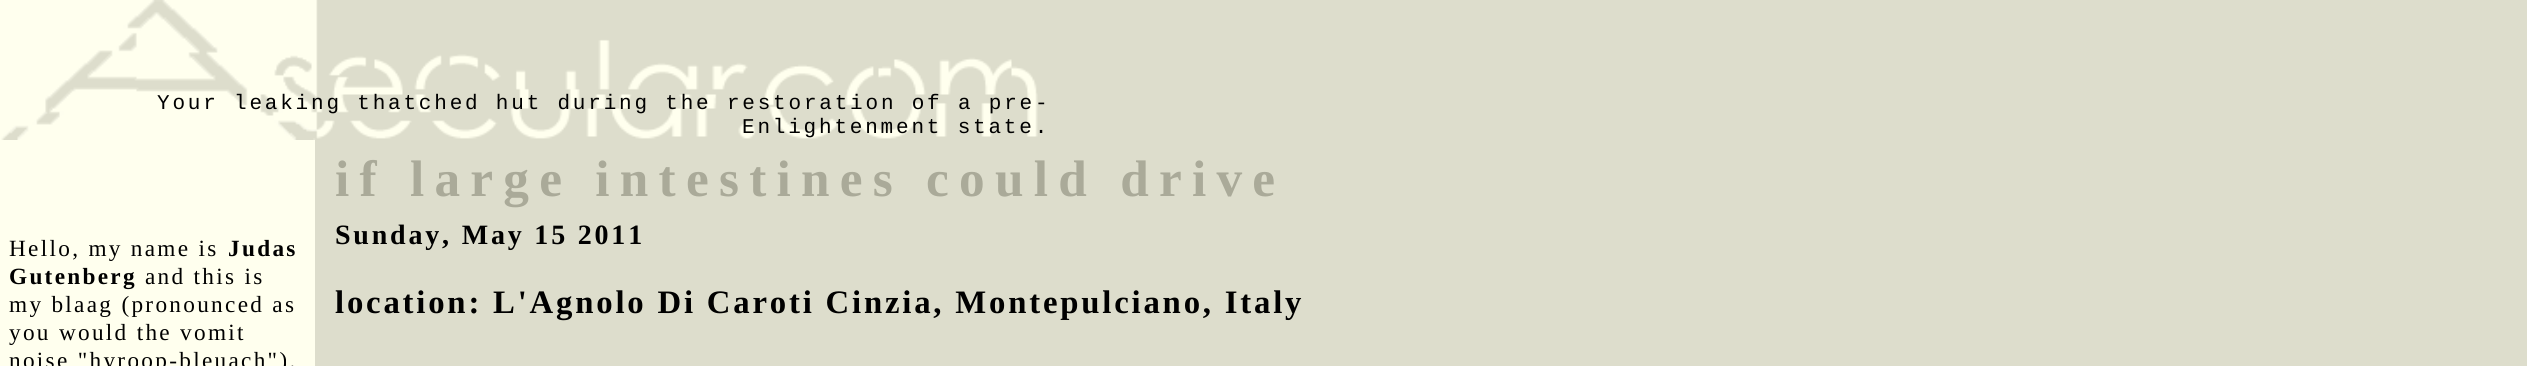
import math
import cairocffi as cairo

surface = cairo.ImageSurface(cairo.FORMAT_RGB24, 2527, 366)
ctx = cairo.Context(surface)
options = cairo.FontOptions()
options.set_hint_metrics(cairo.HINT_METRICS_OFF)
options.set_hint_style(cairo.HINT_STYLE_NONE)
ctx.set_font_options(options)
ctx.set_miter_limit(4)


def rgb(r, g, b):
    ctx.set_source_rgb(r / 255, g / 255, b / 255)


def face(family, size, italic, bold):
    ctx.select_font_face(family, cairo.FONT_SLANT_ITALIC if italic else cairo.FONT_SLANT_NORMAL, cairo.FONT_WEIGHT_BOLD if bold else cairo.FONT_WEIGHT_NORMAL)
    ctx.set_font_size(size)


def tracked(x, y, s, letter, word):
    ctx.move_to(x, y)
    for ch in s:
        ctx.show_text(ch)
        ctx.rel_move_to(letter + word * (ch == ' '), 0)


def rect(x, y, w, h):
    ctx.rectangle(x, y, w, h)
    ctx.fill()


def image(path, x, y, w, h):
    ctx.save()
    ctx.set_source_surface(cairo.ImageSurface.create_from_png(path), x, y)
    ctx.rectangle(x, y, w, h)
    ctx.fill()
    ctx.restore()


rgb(221, 221, 204)
ctx.paint()
image('image0.png', 0, 0, 1038, 140)
face('Liberation Mono', 21, 0, 0)
rgb(0, 0, 0)
tracked(157, 109, 'Your leaking thatched hut during the restoration of a pre-', 2.8, 0)
tracked(742, 133, 'Enlightenment state.', 2.8, 0)
rgb(255, 255, 238)
rect(0, 140, 315, 226)
face('Liberation Serif', 23.25, 0, 0)
rgb(0, 0, 0)
tracked(9, 256, 'Hello, my name is', 2.3, 0)
face('Liberation Serif', 23.25, 0, 1)
tracked(228, 256, 'Judas', 2.3, 0)
tracked(9, 284, 'Gutenberg', 2.3, 0)
face('Liberation Serif', 23.25, 0, 0)
tracked(145, 284, 'and this is', 2.3, 0)
tracked(9, 312, 'my blaag (pronounced as', 2.3, 0)
tracked(9, 340, 'you would the vomit', 2.3, 0)
tracked(9, 368, 'noise "hyroop-bleuach").', 2.3, 0)
face('Liberation Serif', 51.3, 0, 1)
rgb(170, 170, 153)
tracked(335, 196, 'if large intestines could drive', 10.25, 0)
face('Liberation Serif', 28, 0, 1)
rgb(0, 0, 0)
tracked(335, 244, 'Sunday, May 15 2011', 2.8, 0)
face('Liberation Serif', 32.75, 0, 1)
tracked(335, 313, 'location: L\'Agnolo Di Caroti Cinzia, Montepulciano, Italy', 2.8, 0)
surface.write_to_png('render.png')
